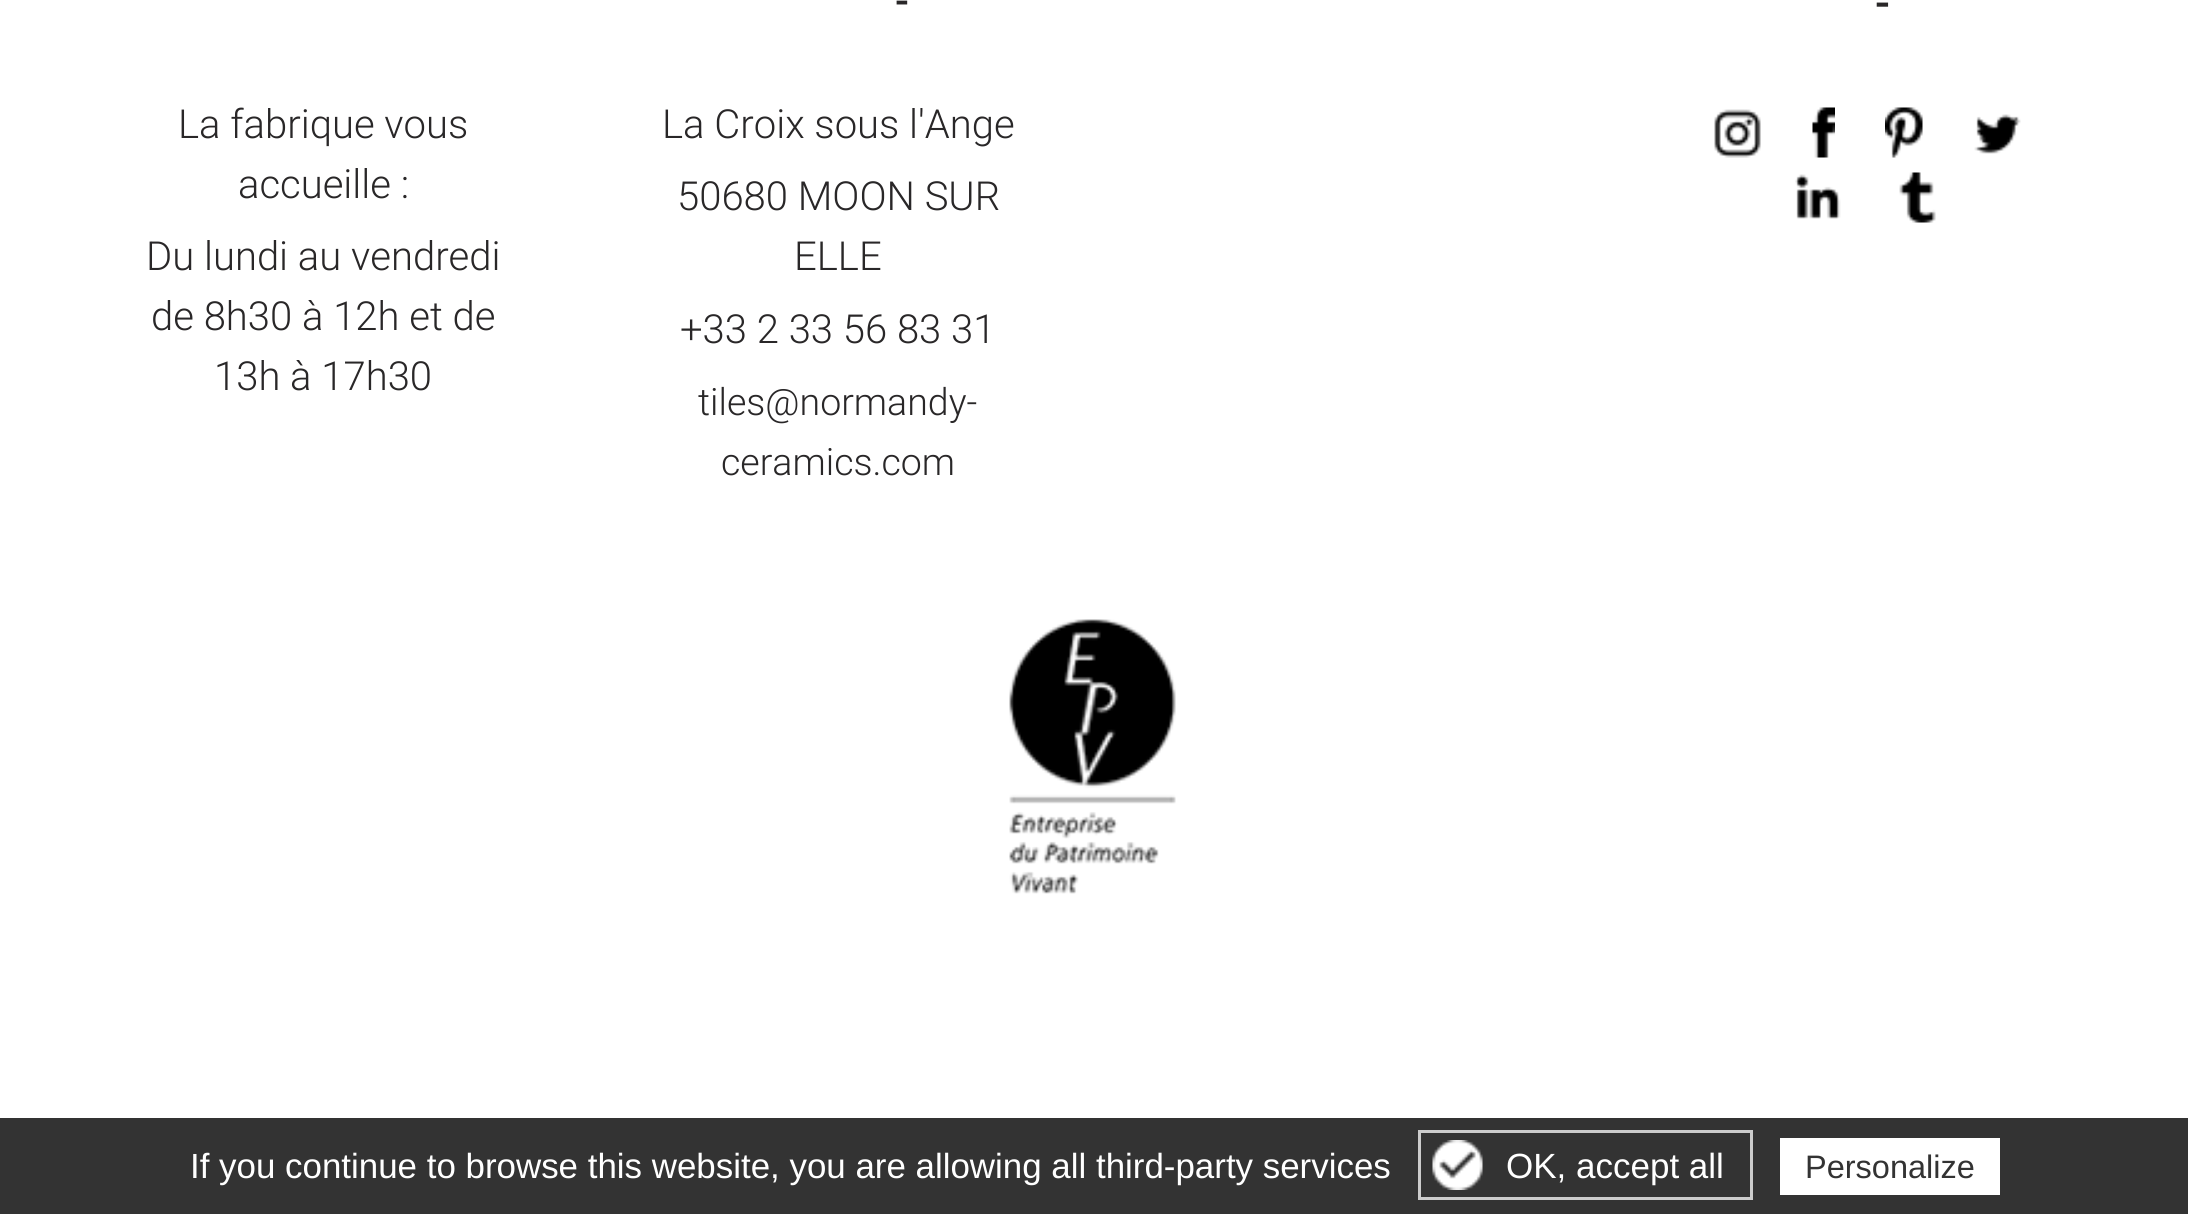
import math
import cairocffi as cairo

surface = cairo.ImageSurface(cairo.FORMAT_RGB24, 2188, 1214)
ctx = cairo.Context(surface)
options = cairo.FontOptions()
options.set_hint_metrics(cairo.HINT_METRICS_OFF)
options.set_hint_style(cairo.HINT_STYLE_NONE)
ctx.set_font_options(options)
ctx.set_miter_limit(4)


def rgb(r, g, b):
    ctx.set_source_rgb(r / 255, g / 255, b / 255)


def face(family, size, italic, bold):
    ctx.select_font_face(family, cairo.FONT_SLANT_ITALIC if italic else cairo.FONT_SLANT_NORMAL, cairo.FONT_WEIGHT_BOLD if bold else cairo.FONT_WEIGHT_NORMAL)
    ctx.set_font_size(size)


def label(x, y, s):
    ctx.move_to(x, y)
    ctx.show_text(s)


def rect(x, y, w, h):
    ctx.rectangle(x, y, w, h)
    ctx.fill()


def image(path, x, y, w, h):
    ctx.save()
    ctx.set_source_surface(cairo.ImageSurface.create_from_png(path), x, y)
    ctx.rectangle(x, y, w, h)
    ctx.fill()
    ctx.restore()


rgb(255, 255, 255)
ctx.paint()
face('Roboto Medium', 41, 0, 0)
rgb(41, 39, 40)
label(895, 15, '-')
face('Roboto Light', 40, 0, 0)
label(662, 138, 'La Croix sous l\'Ange')
label(677, 210, '50680 MOON SUR')
label(794, 270, 'ELLE')
label(680, 343, '+33 2 33 56 83 31')
face('Roboto Light', 37.5, 0, 0)
label(698, 415, 'tiles@normandy-')
label(721, 475, 'ceramics.com')
face('Roboto Medium', 44, 0, 0)
label(1875, 18, '-')
image('image0.png', 1714, 109, 47, 49)
image('image1.png', 1812, 107, 23, 51)
image('image2.png', 1885, 107, 38, 51)
image('image3.png', 1974, 114, 47, 40)
image('image4.png', 1795, 174, 46, 45)
image('image5.png', 1899, 172, 37, 51)
face('Roboto Light', 40, 0, 0)
label(178, 138, 'La fabrique vous')
label(238, 198, 'accueille :')
label(146, 270, 'Du lundi au vendredi')
label(151, 330, 'de 8h30 à 12h et de')
label(214, 390, '13h à 17h30')
image('image6.png', 1009, 619, 167, 275)
rgb(51, 51, 51)
rect(0, 1118, 2188, 96)
face('Liberation Sans', 34.9, 0, 0)
rgb(255, 255, 255)
label(190, 1178, 'If you continue to browse this website, you are allowing all third-party services')
image('image7.png', 1432, 1140, 51, 50)
ctx.rectangle(1419.5, 1131.5, 332, 67)
rgb(204, 204, 204)
ctx.set_line_width(3)
ctx.stroke()
face('Liberation Sans', 35, 0, 0)
rgb(255, 255, 255)
label(1506, 1178, 'OK, accept all')
rect(1780, 1138, 220, 57)
face('Liberation Sans', 32.5, 0, 0)
rgb(51, 51, 51)
label(1805, 1178, 'Personalize')
surface.write_to_png('render.png')
